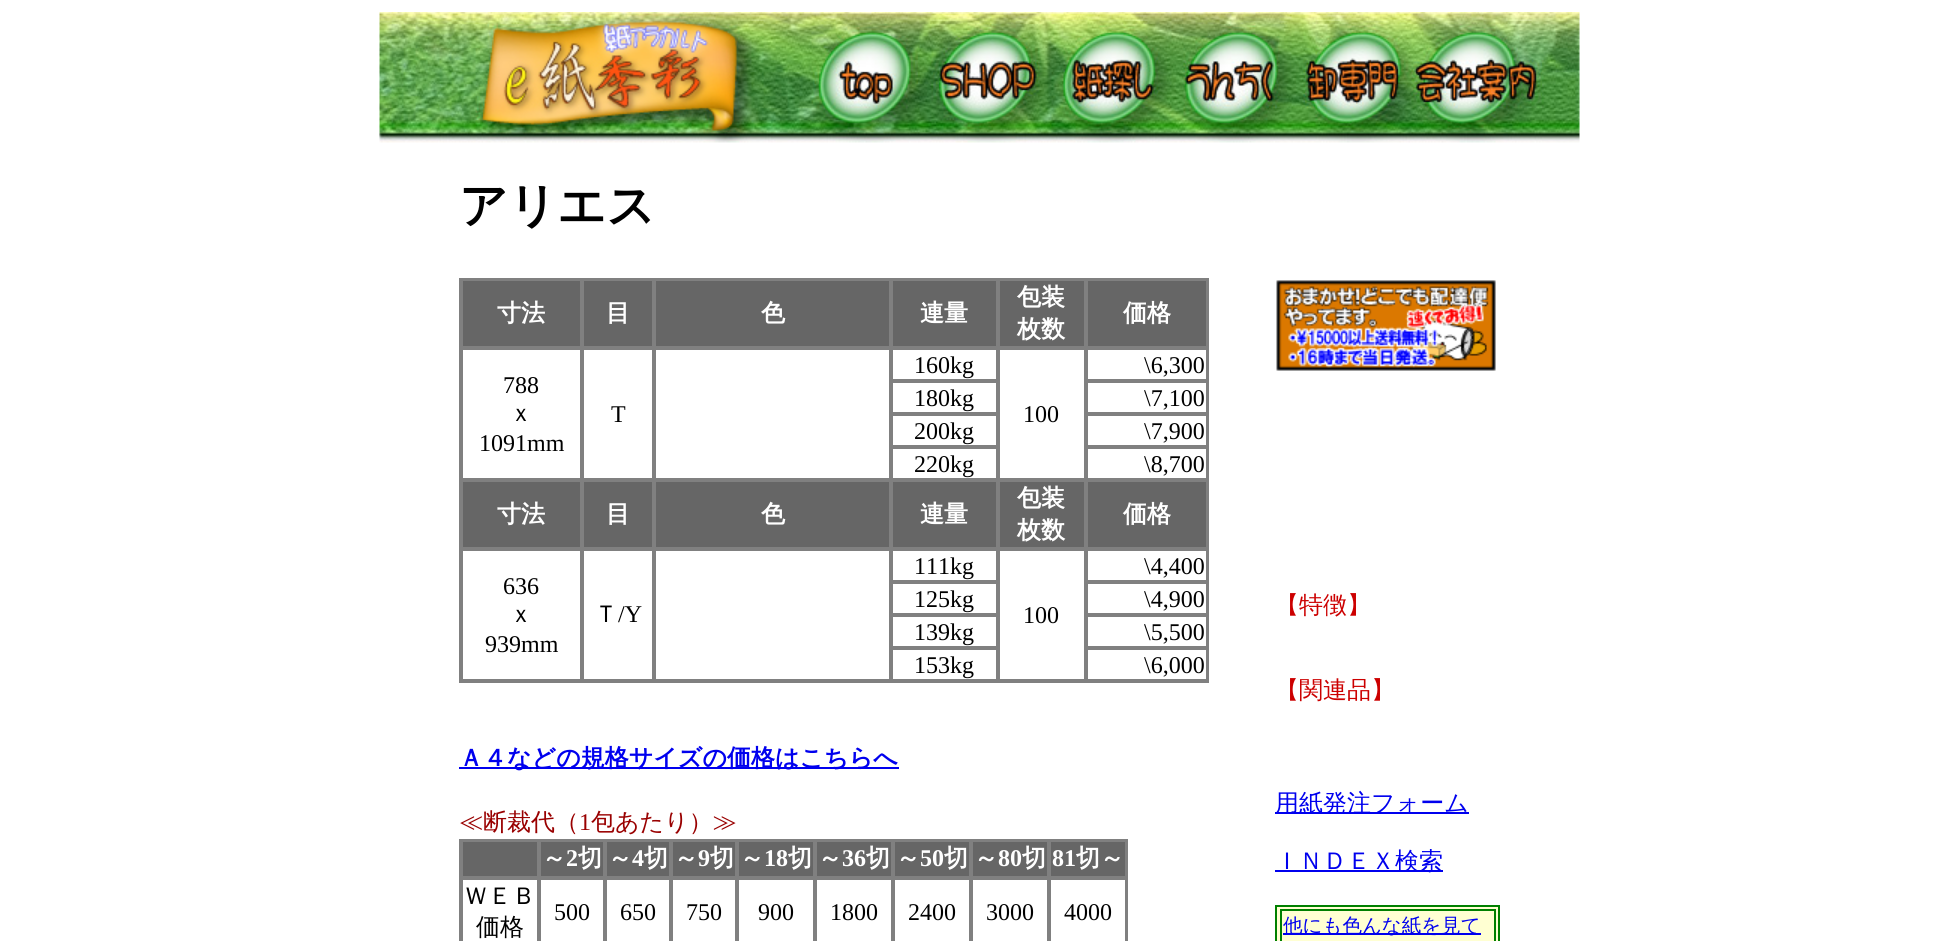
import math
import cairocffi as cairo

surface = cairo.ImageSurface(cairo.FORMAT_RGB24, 1958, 941)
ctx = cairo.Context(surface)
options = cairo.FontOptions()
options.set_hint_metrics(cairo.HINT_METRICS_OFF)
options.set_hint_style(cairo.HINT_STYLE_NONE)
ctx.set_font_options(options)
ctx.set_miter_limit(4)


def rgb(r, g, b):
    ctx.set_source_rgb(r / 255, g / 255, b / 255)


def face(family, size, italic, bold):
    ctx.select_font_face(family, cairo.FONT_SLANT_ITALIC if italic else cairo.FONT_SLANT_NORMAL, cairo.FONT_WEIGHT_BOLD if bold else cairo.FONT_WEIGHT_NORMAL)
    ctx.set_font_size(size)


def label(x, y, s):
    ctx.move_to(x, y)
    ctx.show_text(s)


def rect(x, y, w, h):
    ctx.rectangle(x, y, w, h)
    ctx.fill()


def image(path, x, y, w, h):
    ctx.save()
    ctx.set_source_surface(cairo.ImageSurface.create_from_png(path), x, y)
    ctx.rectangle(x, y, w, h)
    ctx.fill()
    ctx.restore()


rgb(255, 255, 255)
ctx.paint()
image('image0.png', 379, 12, 1201, 131)
face('WenQuanYi Zen Hei', 48, 0, 1)
rgb(0, 0, 0)
label(459, 222, 'アリエス')
ctx.rectangle(460, 279, 748, 403)
rgb(128, 128, 128)
ctx.stroke()
rgb(102, 102, 102)
ctx.rectangle(462, 280, 119, 67)
ctx.fill_preserve()
rgb(128, 128, 128)
ctx.stroke()
face('WenQuanYi Zen Hei', 24, 0, 1)
rgb(255, 255, 255)
label(497, 321, '寸法')
rgb(102, 102, 102)
ctx.rectangle(583, 280, 70, 67)
ctx.fill_preserve()
rgb(128, 128, 128)
ctx.stroke()
rgb(255, 255, 255)
label(606, 321, '目')
rgb(102, 102, 102)
ctx.rectangle(655, 280, 235, 67)
ctx.fill_preserve()
rgb(128, 128, 128)
ctx.stroke()
rgb(255, 255, 255)
label(761, 321, '色')
rgb(102, 102, 102)
ctx.rectangle(892, 280, 105, 67)
ctx.fill_preserve()
rgb(128, 128, 128)
ctx.stroke()
rgb(255, 255, 255)
label(920, 321, '連量')
rgb(102, 102, 102)
ctx.rectangle(999, 280, 86, 67)
ctx.fill_preserve()
rgb(128, 128, 128)
ctx.stroke()
rgb(255, 255, 255)
label(1017, 305, '包装')
label(1017, 337, '枚数')
rgb(102, 102, 102)
ctx.rectangle(1087, 280, 120, 67)
ctx.fill_preserve()
rgb(128, 128, 128)
ctx.stroke()
rgb(255, 255, 255)
label(1123, 321, '価格')
ctx.rectangle(655, 349, 235, 130)
rgb(128, 128, 128)
ctx.stroke()
ctx.rectangle(892, 349, 105, 31)
ctx.stroke()
face('Liberation Serif', 24, 0, 0)
rgb(0, 0, 0)
label(914, 373, '160kg')
ctx.rectangle(1087, 349, 120, 31)
rgb(128, 128, 128)
ctx.stroke()
rgb(0, 0, 0)
label(1144, 373, '\\6,300')
ctx.rectangle(462, 349, 119, 130)
rgb(128, 128, 128)
ctx.stroke()
rgb(0, 0, 0)
label(503, 393, '788')
face('WenQuanYi Zen Hei Medium', 24, 0, 0)
label(509, 421, 'ｘ')
face('Liberation Serif', 24, 0, 0)
label(479, 451, '1091mm')
ctx.rectangle(583, 349, 70, 130)
rgb(128, 128, 128)
ctx.stroke()
rgb(0, 0, 0)
label(611, 422, 'T')
ctx.rectangle(999, 349, 86, 130)
rgb(128, 128, 128)
ctx.stroke()
rgb(0, 0, 0)
label(1023, 422, '100')
ctx.rectangle(892, 382, 105, 31)
rgb(128, 128, 128)
ctx.stroke()
rgb(0, 0, 0)
label(914, 406, '180kg')
ctx.rectangle(1087, 382, 120, 31)
rgb(128, 128, 128)
ctx.stroke()
rgb(0, 0, 0)
label(1144, 406, '\\7,100')
ctx.rectangle(892, 415, 105, 31)
rgb(128, 128, 128)
ctx.stroke()
rgb(0, 0, 0)
label(914, 439, '200kg')
ctx.rectangle(1087, 415, 120, 31)
rgb(128, 128, 128)
ctx.stroke()
rgb(0, 0, 0)
label(1144, 439, '\\7,900')
ctx.rectangle(892, 448, 105, 31)
rgb(128, 128, 128)
ctx.stroke()
rgb(0, 0, 0)
label(914, 472, '220kg')
ctx.rectangle(1087, 448, 120, 31)
rgb(128, 128, 128)
ctx.stroke()
rgb(0, 0, 0)
label(1144, 472, '\\8,700')
rgb(102, 102, 102)
ctx.rectangle(462, 481, 119, 67)
ctx.fill_preserve()
rgb(128, 128, 128)
ctx.stroke()
face('WenQuanYi Zen Hei', 24, 0, 1)
rgb(255, 255, 255)
label(497, 522, '寸法')
rgb(102, 102, 102)
ctx.rectangle(583, 481, 70, 67)
ctx.fill_preserve()
rgb(128, 128, 128)
ctx.stroke()
rgb(255, 255, 255)
label(606, 522, '目')
rgb(102, 102, 102)
ctx.rectangle(655, 481, 235, 67)
ctx.fill_preserve()
rgb(128, 128, 128)
ctx.stroke()
rgb(255, 255, 255)
label(761, 522, '色')
rgb(102, 102, 102)
ctx.rectangle(892, 481, 105, 67)
ctx.fill_preserve()
rgb(128, 128, 128)
ctx.stroke()
rgb(255, 255, 255)
label(920, 522, '連量')
rgb(102, 102, 102)
ctx.rectangle(999, 481, 86, 67)
ctx.fill_preserve()
rgb(128, 128, 128)
ctx.stroke()
rgb(255, 255, 255)
label(1017, 506, '包装')
label(1017, 538, '枚数')
rgb(102, 102, 102)
ctx.rectangle(1087, 481, 120, 67)
ctx.fill_preserve()
rgb(128, 128, 128)
ctx.stroke()
rgb(255, 255, 255)
label(1123, 522, '価格')
ctx.rectangle(655, 550, 235, 130)
rgb(128, 128, 128)
ctx.stroke()
ctx.rectangle(892, 550, 105, 31)
ctx.stroke()
face('Liberation Serif', 24, 0, 0)
rgb(0, 0, 0)
label(914, 574, '111kg')
ctx.rectangle(1087, 550, 120, 31)
rgb(128, 128, 128)
ctx.stroke()
rgb(0, 0, 0)
label(1144, 574, '\\4,400')
ctx.rectangle(462, 550, 119, 130)
rgb(128, 128, 128)
ctx.stroke()
rgb(0, 0, 0)
label(503, 594, '636')
face('WenQuanYi Zen Hei Medium', 24, 0, 0)
label(509, 622, 'ｘ')
face('Liberation Serif', 24, 0, 0)
label(485, 652, '939mm')
ctx.rectangle(583, 550, 70, 130)
rgb(128, 128, 128)
ctx.stroke()
face('WenQuanYi Zen Hei Medium', 24, 0, 0)
rgb(0, 0, 0)
label(594, 622, 'Ｔ')
face('Liberation Serif', 24, 0, 0)
label(618, 622, '/Y')
ctx.rectangle(999, 550, 86, 130)
rgb(128, 128, 128)
ctx.stroke()
rgb(0, 0, 0)
label(1023, 623, '100')
ctx.rectangle(892, 583, 105, 31)
rgb(128, 128, 128)
ctx.stroke()
rgb(0, 0, 0)
label(914, 607, '125kg')
ctx.rectangle(1087, 583, 120, 31)
rgb(128, 128, 128)
ctx.stroke()
rgb(0, 0, 0)
label(1144, 607, '\\4,900')
ctx.rectangle(892, 616, 105, 31)
rgb(128, 128, 128)
ctx.stroke()
rgb(0, 0, 0)
label(914, 640, '139kg')
ctx.rectangle(1087, 616, 120, 31)
rgb(128, 128, 128)
ctx.stroke()
rgb(0, 0, 0)
label(1144, 640, '\\5,500')
ctx.rectangle(892, 649, 105, 31)
rgb(128, 128, 128)
ctx.stroke()
rgb(0, 0, 0)
label(914, 673, '153kg')
ctx.rectangle(1087, 649, 120, 31)
rgb(128, 128, 128)
ctx.stroke()
rgb(0, 0, 0)
label(1144, 673, '\\6,000')
image('image1.png', 1276, 280, 220, 91)
face('WenQuanYi Zen Hei Medium', 24, 0, 0)
rgb(204, 0, 0)
label(1275, 613, '【特徴】')
label(1275, 698, '【関連品】')
rgb(0, 0, 238)
rect(1275, 812, 194, 2)
label(1275, 811, '用紙発注フォーム')
rect(1275, 870, 168, 2)
label(1275, 869, 'ＩＮＤＥＸ検索')
rgb(255, 255, 210)
ctx.rectangle(1276, 906, 223, 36)
ctx.fill_preserve()
rgb(0, 128, 0)
ctx.stroke()
ctx.rectangle(1281, 910, 214, 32)
ctx.stroke()
rgb(0, 0, 238)
rect(1283, 933, 198, 2)
face('WenQuanYi Zen Hei Medium', 19.5, 0, 0)
label(1283, 932, '他にも色んな紙を見て')
rect(459, 767, 440, 2)
face('WenQuanYi Zen Hei', 24, 0, 1)
label(459, 766, 'Ａ４などの規格サイズの価格はこちらへ')
face('WenQuanYi Zen Hei Medium', 24, 0, 0)
rgb(153, 0, 0)
label(459, 830, '≪断裁代（')
face('Liberation Serif', 24, 0, 0)
label(579, 830, '1')
face('WenQuanYi Zen Hei Medium', 24, 0, 0)
label(591, 830, '包あたり）≫')
ctx.rectangle(460, 840, 667, 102)
rgb(128, 128, 128)
ctx.stroke()
rgb(102, 102, 102)
ctx.rectangle(462, 841, 76, 36)
ctx.fill_preserve()
rgb(128, 128, 128)
ctx.stroke()
rgb(102, 102, 102)
ctx.rectangle(540, 841, 64, 36)
ctx.fill_preserve()
rgb(128, 128, 128)
ctx.stroke()
face('WenQuanYi Zen Hei', 24, 0, 1)
rgb(255, 255, 255)
label(542, 866, '～')
face('Liberation Serif', 24, 0, 1)
label(566, 866, '2')
face('WenQuanYi Zen Hei', 24, 0, 1)
label(578, 866, '切')
rgb(102, 102, 102)
ctx.rectangle(606, 841, 64, 36)
ctx.fill_preserve()
rgb(128, 128, 128)
ctx.stroke()
rgb(255, 255, 255)
label(608, 866, '～')
face('Liberation Serif', 24, 0, 1)
label(632, 866, '4')
face('WenQuanYi Zen Hei', 24, 0, 1)
label(644, 866, '切')
rgb(102, 102, 102)
ctx.rectangle(672, 841, 64, 36)
ctx.fill_preserve()
rgb(128, 128, 128)
ctx.stroke()
rgb(255, 255, 255)
label(674, 866, '～')
face('Liberation Serif', 24, 0, 1)
label(698, 866, '9')
face('WenQuanYi Zen Hei', 24, 0, 1)
label(710, 866, '切')
rgb(102, 102, 102)
ctx.rectangle(738, 841, 76, 36)
ctx.fill_preserve()
rgb(128, 128, 128)
ctx.stroke()
rgb(255, 255, 255)
label(740, 866, '～')
face('Liberation Serif', 24, 0, 1)
label(764, 866, '18')
face('WenQuanYi Zen Hei', 24, 0, 1)
label(788, 866, '切')
rgb(102, 102, 102)
ctx.rectangle(816, 841, 76, 36)
ctx.fill_preserve()
rgb(128, 128, 128)
ctx.stroke()
rgb(255, 255, 255)
label(818, 866, '～')
face('Liberation Serif', 24, 0, 1)
label(842, 866, '36')
face('WenQuanYi Zen Hei', 24, 0, 1)
label(866, 866, '切')
rgb(102, 102, 102)
ctx.rectangle(894, 841, 76, 36)
ctx.fill_preserve()
rgb(128, 128, 128)
ctx.stroke()
rgb(255, 255, 255)
label(896, 866, '～')
face('Liberation Serif', 24, 0, 1)
label(920, 866, '50')
face('WenQuanYi Zen Hei', 24, 0, 1)
label(944, 866, '切')
rgb(102, 102, 102)
ctx.rectangle(972, 841, 76, 36)
ctx.fill_preserve()
rgb(128, 128, 128)
ctx.stroke()
rgb(255, 255, 255)
label(974, 866, '～')
face('Liberation Serif', 24, 0, 1)
label(998, 866, '80')
face('WenQuanYi Zen Hei', 24, 0, 1)
label(1022, 866, '切')
rgb(102, 102, 102)
ctx.rectangle(1050, 841, 76, 36)
ctx.fill_preserve()
rgb(128, 128, 128)
ctx.stroke()
face('Liberation Serif', 24, 0, 1)
rgb(255, 255, 255)
label(1052, 866, '81')
face('WenQuanYi Zen Hei', 24, 0, 1)
label(1076, 866, '切～')
ctx.rectangle(462, 879, 76, 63)
rgb(128, 128, 128)
ctx.stroke()
face('WenQuanYi Zen Hei Medium', 24, 0, 0)
rgb(0, 0, 0)
label(464, 904, 'ＷＥＢ')
label(476, 935, '価格')
ctx.rectangle(540, 879, 64, 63)
rgb(128, 128, 128)
ctx.stroke()
face('Liberation Serif', 24, 0, 0)
rgb(0, 0, 0)
label(554, 920, '500')
ctx.rectangle(606, 879, 64, 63)
rgb(128, 128, 128)
ctx.stroke()
rgb(0, 0, 0)
label(620, 920, '650')
ctx.rectangle(672, 879, 64, 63)
rgb(128, 128, 128)
ctx.stroke()
rgb(0, 0, 0)
label(686, 920, '750')
ctx.rectangle(738, 879, 76, 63)
rgb(128, 128, 128)
ctx.stroke()
rgb(0, 0, 0)
label(758, 920, '900')
ctx.rectangle(816, 879, 76, 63)
rgb(128, 128, 128)
ctx.stroke()
rgb(0, 0, 0)
label(830, 920, '1800')
ctx.rectangle(894, 879, 76, 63)
rgb(128, 128, 128)
ctx.stroke()
rgb(0, 0, 0)
label(908, 920, '2400')
ctx.rectangle(972, 879, 76, 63)
rgb(128, 128, 128)
ctx.stroke()
rgb(0, 0, 0)
label(986, 920, '3000')
ctx.rectangle(1050, 879, 76, 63)
rgb(128, 128, 128)
ctx.stroke()
rgb(0, 0, 0)
label(1064, 920, '4000')
surface.write_to_png('render.png')
